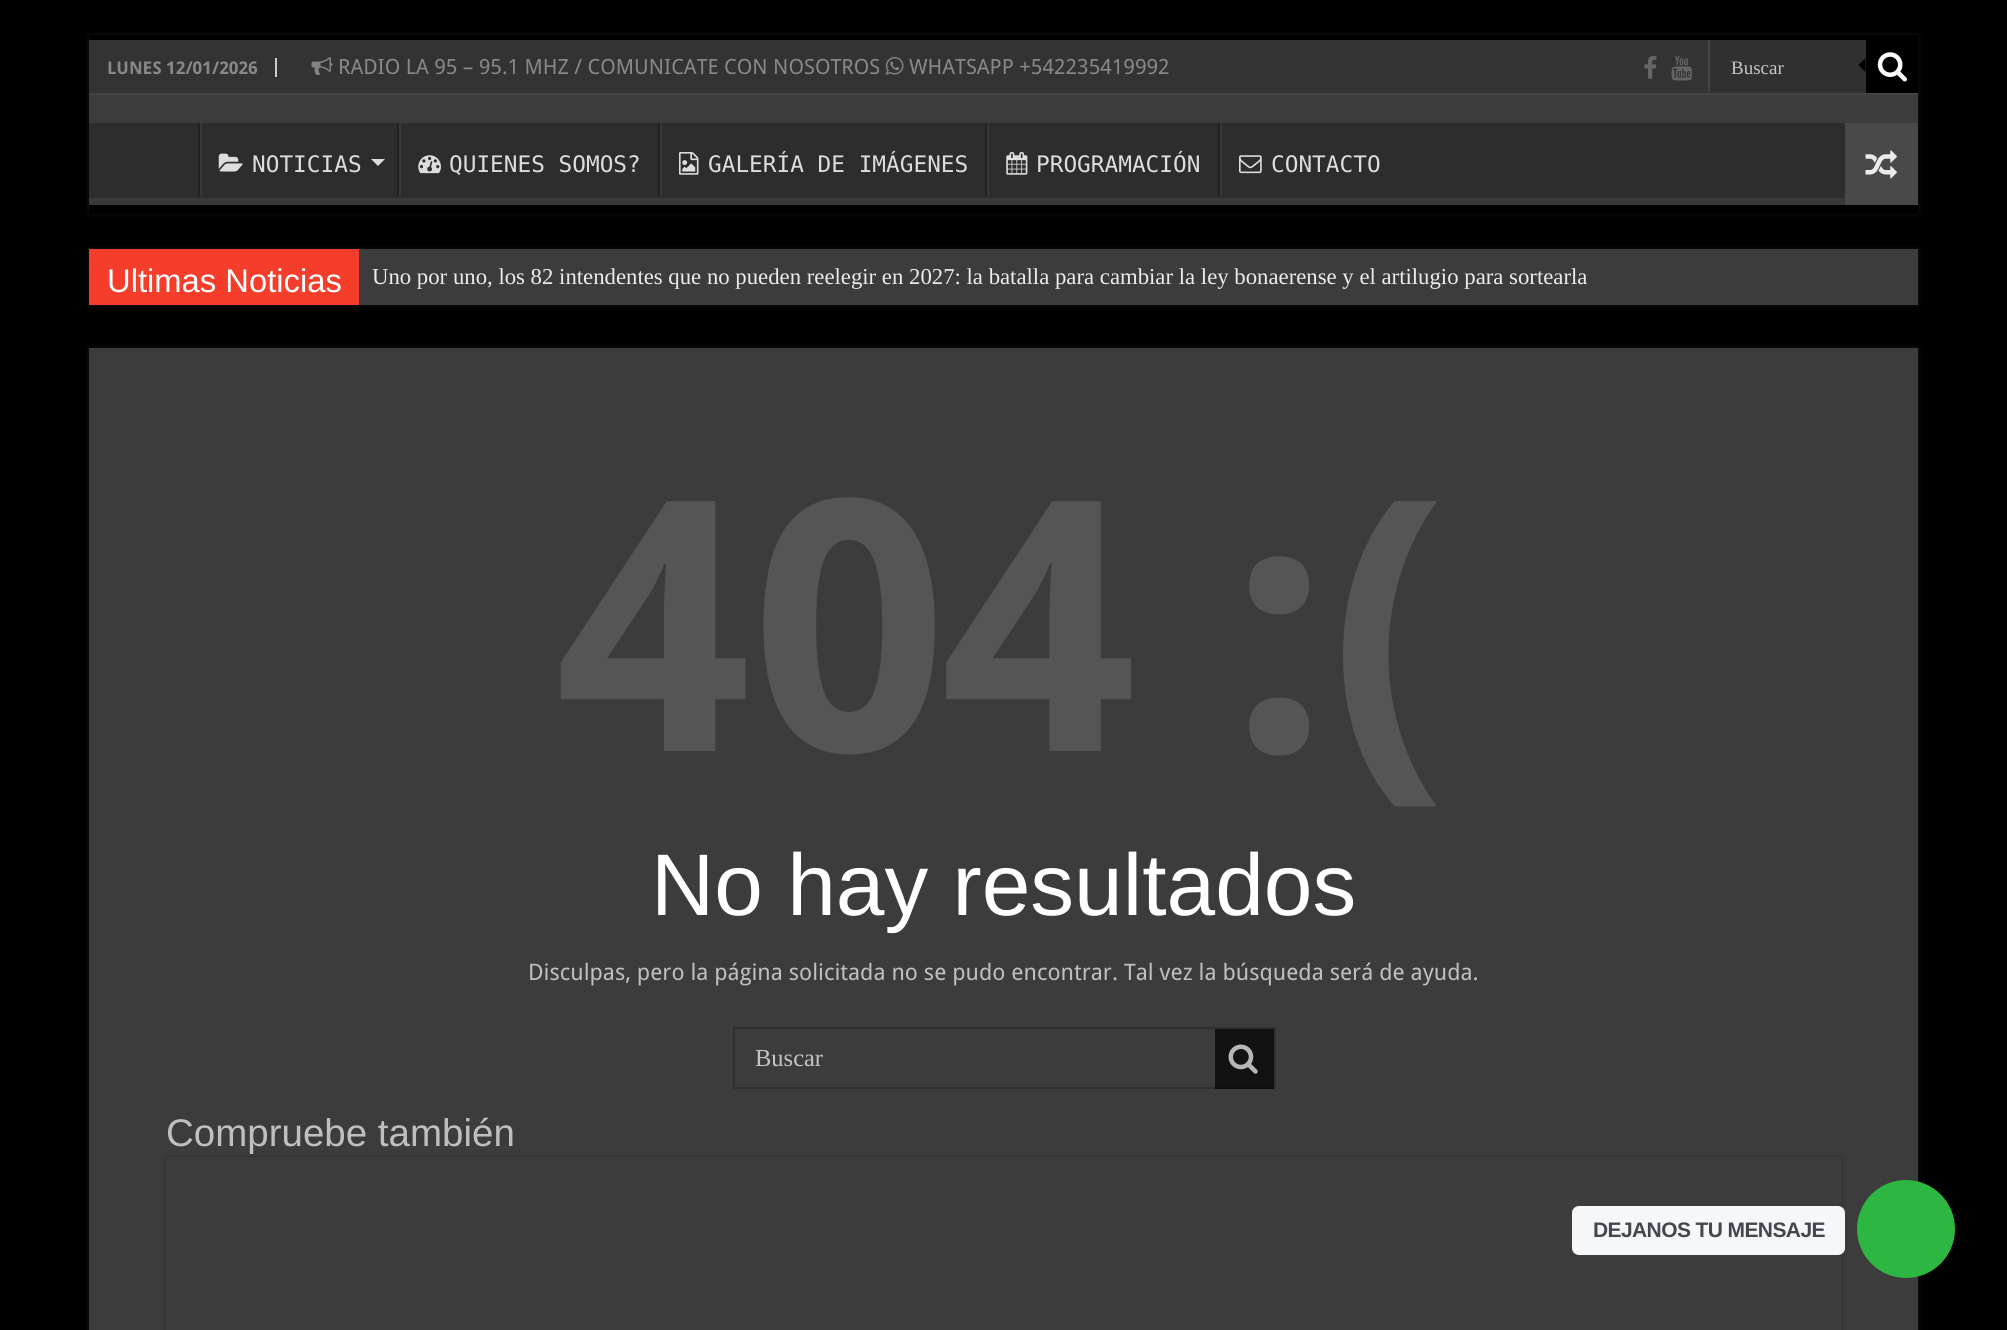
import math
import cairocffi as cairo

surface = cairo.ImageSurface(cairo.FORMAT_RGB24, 2007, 1330)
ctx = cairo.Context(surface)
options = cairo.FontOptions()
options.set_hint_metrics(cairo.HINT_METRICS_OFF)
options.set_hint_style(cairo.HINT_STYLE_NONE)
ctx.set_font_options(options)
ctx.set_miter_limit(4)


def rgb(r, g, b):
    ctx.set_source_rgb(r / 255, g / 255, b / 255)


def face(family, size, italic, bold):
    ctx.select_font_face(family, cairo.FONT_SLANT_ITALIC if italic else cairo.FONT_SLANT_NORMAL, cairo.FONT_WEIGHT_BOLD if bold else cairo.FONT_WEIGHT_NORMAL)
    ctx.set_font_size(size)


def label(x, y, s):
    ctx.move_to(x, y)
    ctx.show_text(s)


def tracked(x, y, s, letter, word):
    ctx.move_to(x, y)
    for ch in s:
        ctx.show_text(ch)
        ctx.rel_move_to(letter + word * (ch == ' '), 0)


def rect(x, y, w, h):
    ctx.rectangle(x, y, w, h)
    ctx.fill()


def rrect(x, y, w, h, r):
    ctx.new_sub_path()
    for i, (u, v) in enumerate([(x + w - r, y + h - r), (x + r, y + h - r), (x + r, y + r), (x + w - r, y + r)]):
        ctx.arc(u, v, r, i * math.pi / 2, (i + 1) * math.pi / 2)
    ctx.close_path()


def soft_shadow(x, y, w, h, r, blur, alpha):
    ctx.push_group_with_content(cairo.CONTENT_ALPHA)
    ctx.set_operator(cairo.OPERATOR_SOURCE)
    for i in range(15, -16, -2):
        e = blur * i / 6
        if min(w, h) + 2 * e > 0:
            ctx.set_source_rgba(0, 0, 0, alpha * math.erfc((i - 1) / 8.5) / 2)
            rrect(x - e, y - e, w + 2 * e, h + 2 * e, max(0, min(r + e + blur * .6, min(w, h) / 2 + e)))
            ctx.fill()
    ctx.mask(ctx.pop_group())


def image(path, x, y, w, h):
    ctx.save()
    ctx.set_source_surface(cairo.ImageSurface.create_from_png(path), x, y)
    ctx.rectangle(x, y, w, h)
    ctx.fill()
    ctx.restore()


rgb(0, 0, 0)
ctx.paint()
rgb(20, 20, 20)
soft_shadow(89, 35, 1829, 179, 0, 2.5, 1)
rgb(60, 60, 60)
rect(89, 95, 1829, 28)
rgb(0, 0, 0)
rect(89, 35, 1829, 5)
rgb(51, 51, 51)
rect(89, 40, 1777, 53)
rgb(68, 68, 68)
rect(89, 93, 1829, 2)
rgb(204, 204, 204)
rect(275, 58, 2, 19)
face('Droid Sans', 17.5, 0, 1)
rgb(136, 136, 136)
label(107, 74, 'LUNES 12/01/2026')
image('image0.png', 311, 57, 22, 18)
face('Droid Sans', 21, 0, 0)
label(338, 74, 'RADIO LA 95 – 95.1 MHZ / COMUNICATE CON NOSOTROS')
image('image1.png', 885, 57, 19, 18)
label(909, 74, 'WHATSAPP +542235419992')
image('image2.png', 1644, 56, 13, 23)
image('image3.png', 1671, 56, 21, 25)
rgb(48, 48, 48)
rect(1710, 40, 156, 51)
rgb(68, 68, 68)
rect(1708, 40, 2, 51)
face('Liberation Serif', 19, 0, 0)
rgb(197, 197, 197)
label(1731, 74, 'Buscar')
rgb(0, 0, 0)
rect(1866, 40, 52, 53)
image('image4.png', 1877, 52, 30, 30)
ctx.new_path()
ctx.move_to(1865.5, 58)
ctx.line_to(1865.5, 72)
ctx.line_to(1858.5, 65)
ctx.close_path()
ctx.fill()
rgb(45, 45, 45)
rect(89, 123, 1756, 75)
ctx.save()
ctx.rectangle(89, 123, 1829, 82)
ctx.clip()
rgb(57, 57, 57)
ctx.set_fill_rule(cairo.FILL_RULE_EVEN_ODD)
ctx.new_path()
ctx.move_to(-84, -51)
ctx.line_to(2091, -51)
ctx.line_to(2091, 378)
ctx.line_to(-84, 378)
ctx.close_path()
ctx.move_to(88, 112)
ctx.line_to(1916, 112)
ctx.curve_to(1917, 112, 1918, 113, 1918, 114)
ctx.line_to(1918, 196)
ctx.curve_to(1918, 197, 1917, 198, 1916, 198)
ctx.line_to(88, 198)
ctx.curve_to(87, 198, 86, 197, 86, 196)
ctx.line_to(86, 114)
ctx.curve_to(86, 113, 87, 112, 88, 112)
ctx.close_path()
ctx.fill()
ctx.restore()
rgb(0, 0, 0)
rect(89, 205, 1829, 9)
rgb(34, 34, 34)
rect(198, 123, 2, 73)
rgb(56, 56, 56)
rect(200, 123, 2, 73)
image('image5.png', 218, 153, 25, 19)
face('DejaVu Sans Mono', 22.75, 0, 0)
rgb(221, 221, 221)
label(252, 172, 'NOTICIAS')
ctx.new_path()
ctx.move_to(371, 159)
ctx.line_to(385, 159)
ctx.line_to(378, 166)
ctx.close_path()
ctx.fill()
rgb(34, 34, 34)
rect(397, 123, 2, 73)
rgb(56, 56, 56)
rect(399, 123, 2, 73)
image('image6.png', 418, 155, 23, 19)
rgb(221, 221, 221)
label(449, 172, 'QUIENES SOMOS?')
rgb(34, 34, 34)
rect(658, 123, 2, 73)
rgb(56, 56, 56)
rect(660, 123, 2, 73)
image('image7.png', 679, 152, 20, 23)
rgb(221, 221, 221)
label(708, 172, 'GALERÍA DE IMÁGENES')
rgb(34, 34, 34)
rect(985, 123, 2, 73)
rgb(56, 56, 56)
rect(987, 123, 2, 73)
image('image8.png', 1006, 152, 22, 23)
rgb(221, 221, 221)
label(1036, 172, 'PROGRAMACIÓN')
rgb(34, 34, 34)
rect(1218, 123, 2, 73)
rgb(56, 56, 56)
rect(1220, 123, 2, 73)
image('image9.png', 1239, 155, 23, 19)
rgb(221, 221, 221)
label(1271, 172, 'CONTACTO')
rgb(73, 73, 73)
rect(1845, 123, 73, 82)
image('image10.png', 1865, 150, 32, 29)
rgb(20, 20, 20)
soft_shadow(89, 249, 1829, 56, 0, 2.5, 1)
rgb(60, 60, 60)
rect(359, 249, 1559, 56)
rgb(244, 61, 42)
rect(89, 249, 270, 56)
face('Liberation Sans', 32.75, 0, 0)
rgb(255, 255, 255)
label(107, 292, 'Ultimas Noticias')
face('Liberation Serif', 22.75, 0, 0)
rgb(236, 236, 236)
label(372, 284, 'Uno por uno, los 82 intendentes que no pueden reelegir en 2027: la batalla para cambiar la ley bonaerense y el artilugio para sortearla')
rgb(20, 20, 20)
soft_shadow(89, 348, 1829, 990, 0, 2.5, 1)
rgb(60, 60, 60)
rect(89, 348, 1829, 982)
face('Droid Sans', 350, 0, 1)
rgb(85, 85, 85)
label(560, 751, '404 :(')
face('Liberation Sans', 87.5, 0, 0)
rgb(255, 255, 255)
label(651, 915, 'No hay resultados')
face('Droid Sans', 22.75, 0, 0)
rgb(191, 191, 191)
label(528, 980, 'Disculpas, pero la página solicitada no se pudo encontrar. Tal vez la búsqueda será de ayuda.')
ctx.rectangle(734, 1028, 541, 60)
rgb(47, 47, 47)
ctx.stroke()
face('Liberation Serif', 24.5, 0, 0)
rgb(197, 197, 197)
label(755, 1066, 'Buscar')
ctx.set_source_rgba(0, 0, 0, 0.7)
rect(1215, 1029, 59, 60)
image('image11.png', 1228, 1044, 30, 30)
rgb(42, 42, 42)
soft_shadow(166, 1157, 1675, 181, 0, 2.5, 1)
face('Liberation Sans', 38.5, 0, 0)
rgb(191, 191, 191)
label(166, 1146, 'Compruebe también')
rgb(60, 60, 60)
rect(166, 1157, 1675, 173)
rgb(245, 247, 249)
rrect(1572, 1206, 273, 49, 7)
ctx.fill()
face('Liberation Sans', 21, 0, 1)
rgb(67, 71, 78)
tracked(1593, 1237, 'DEJANOS TU MENSAJE', -0.6, 0)
rgb(45, 183, 66)
ctx.new_path()
ctx.arc(1906, 1229, 49, 0, 2 * math.pi)
ctx.fill()
surface.write_to_png('render.png')
